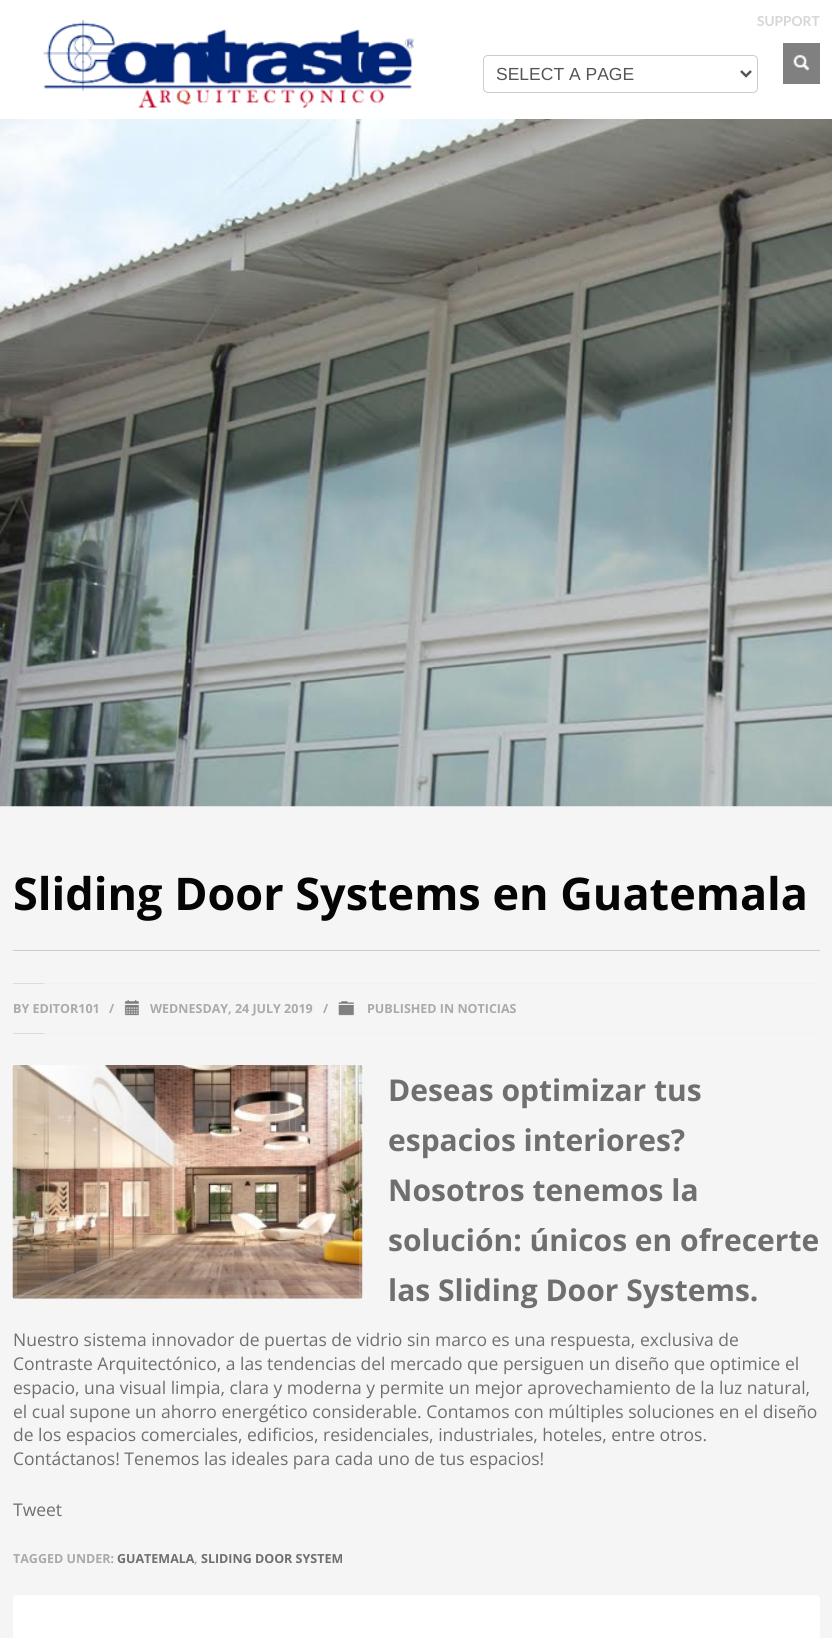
import math
import cairocffi as cairo

surface = cairo.ImageSurface(cairo.FORMAT_RGB24, 832, 1638)
ctx = cairo.Context(surface)
options = cairo.FontOptions()
options.set_hint_metrics(cairo.HINT_METRICS_OFF)
options.set_hint_style(cairo.HINT_STYLE_NONE)
ctx.set_font_options(options)
ctx.set_miter_limit(4)


def rgb(r, g, b):
    ctx.set_source_rgb(r / 255, g / 255, b / 255)


def face(family, size, italic, bold):
    ctx.select_font_face(family, cairo.FONT_SLANT_ITALIC if italic else cairo.FONT_SLANT_NORMAL, cairo.FONT_WEIGHT_BOLD if bold else cairo.FONT_WEIGHT_NORMAL)
    ctx.set_font_size(size)


def label(x, y, s):
    ctx.move_to(x, y)
    ctx.show_text(s)


def rect(x, y, w, h):
    ctx.rectangle(x, y, w, h)
    ctx.fill()


def rrect(x, y, w, h, r):
    ctx.new_sub_path()
    for i, (u, v) in enumerate([(x + w - r, y + h - r), (x + r, y + h - r), (x + r, y + r), (x + w - r, y + r)]):
        ctx.arc(u, v, r, i * math.pi / 2, (i + 1) * math.pi / 2)
    ctx.close_path()


def image(path, x, y, w, h):
    ctx.save()
    ctx.set_source_surface(cairo.ImageSurface.create_from_png(path), x, y)
    ctx.rectangle(x, y, w, h)
    ctx.fill()
    ctx.restore()


rgb(245, 245, 245)
ctx.paint()
rgb(255, 255, 255)
rect(0, 0, 832, 119)
image('image0.png', 43, 20, 371, 88)
face('Lato', 13.75, 0, 1)
rgb(214, 214, 214)
label(757, 26, 'SUPPORT')
rrect(483.5, 55.5, 274, 37, 4.5)
rgb(204, 204, 204)
ctx.set_line_width(1)
ctx.stroke()
ctx.new_path()
ctx.move_to(741, 71)
ctx.line_to(746, 76)
ctx.line_to(751, 71)
rgb(85, 85, 85)
ctx.set_line_width(2.5)
ctx.stroke()
face('Liberation Sans', 17.5, 0, 0)
label(496, 80, 'SELECT A PAGE')
rgb(128, 128, 128)
rect(783, 43, 37, 41)
image('image1.png', 793, 54, 17, 17)
image('image2.png', 0, 119, 832, 688)
rgb(203, 203, 203)
rect(13, 950, 807, 1)
face('Open Sans', 45, 0, 1)
rgb(5, 5, 5)
label(13, 910, 'Sliding Door Systems en Guatemala')
rgb(241, 241, 241)
rect(44, 983, 776, 1)
rect(44, 1033, 776, 1)
rgb(220, 220, 220)
rect(13, 983, 31, 1)
face('Open Sans', 12.5, 0, 1)
rgb(170, 170, 170)
label(13, 1013, 'BY EDITOR101')
label(109, 1013, '/')
image('image3.png', 124, 999, 15, 17)
label(150, 1013, 'WEDNESDAY, 24 JULY 2019')
label(323, 1013, '/')
image('image4.png', 338, 1001, 16, 15)
label(367, 1013, 'PUBLISHED IN NOTICIAS')
rgb(220, 220, 220)
rect(13, 1033, 31, 1)
image('image5.png', 12, 1065, 351, 234)
rrect(15, 1067, 346, 230, 0.5)
ctx.set_source_rgba(1, 1, 1, 0.15)
ctx.set_line_width(4)
ctx.stroke()
face('Open Sans', 30, 0, 1)
rgb(112, 111, 111)
label(388, 1101, 'Deseas optimizar tus')
label(388, 1151, 'espacios interiores?')
label(388, 1201, 'Nosotros tenemos la')
label(388, 1251, 'solución: únicos en ofrecerte')
label(388, 1301, 'las Sliding Door Systems.')
face('Open Sans', 17.5, 0, 0)
label(13, 1346, 'Nuestro sistema innovador de puertas de vidrio sin marco es una respuesta, exclusiva de')
label(13, 1370, 'Contraste Arquitectónico, a las tendencias del mercado que persiguen un diseño que optimice el')
label(13, 1394, 'espacio, una visual limpia, clara y moderna y permite un mejor aprovechamiento de la luz natural,')
label(13, 1418, 'el cual supone un ahorro energético considerable. Contamos con múltiples soluciones en el diseño')
label(13, 1441, 'de los espacios comerciales, edificios, residenciales, industriales, hoteles, entre otros.')
label(13, 1465, 'Contáctanos! Tenemos las ideales para cada uno de tus espacios!')
label(13, 1516, 'Tweet')
face('Open Sans', 12.5, 0, 1)
rgb(170, 170, 170)
label(13, 1563, 'TAGGED UNDER:')
rgb(112, 111, 111)
label(117, 1563, 'GUATEMALA')
rgb(170, 170, 170)
label(194, 1563, ',')
rgb(112, 111, 111)
label(201, 1563, 'SLIDING DOOR SYSTEM')
rgb(255, 255, 255)
rrect(13, 1595, 807, 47, 4)
ctx.fill()
surface.write_to_png('render.png')
